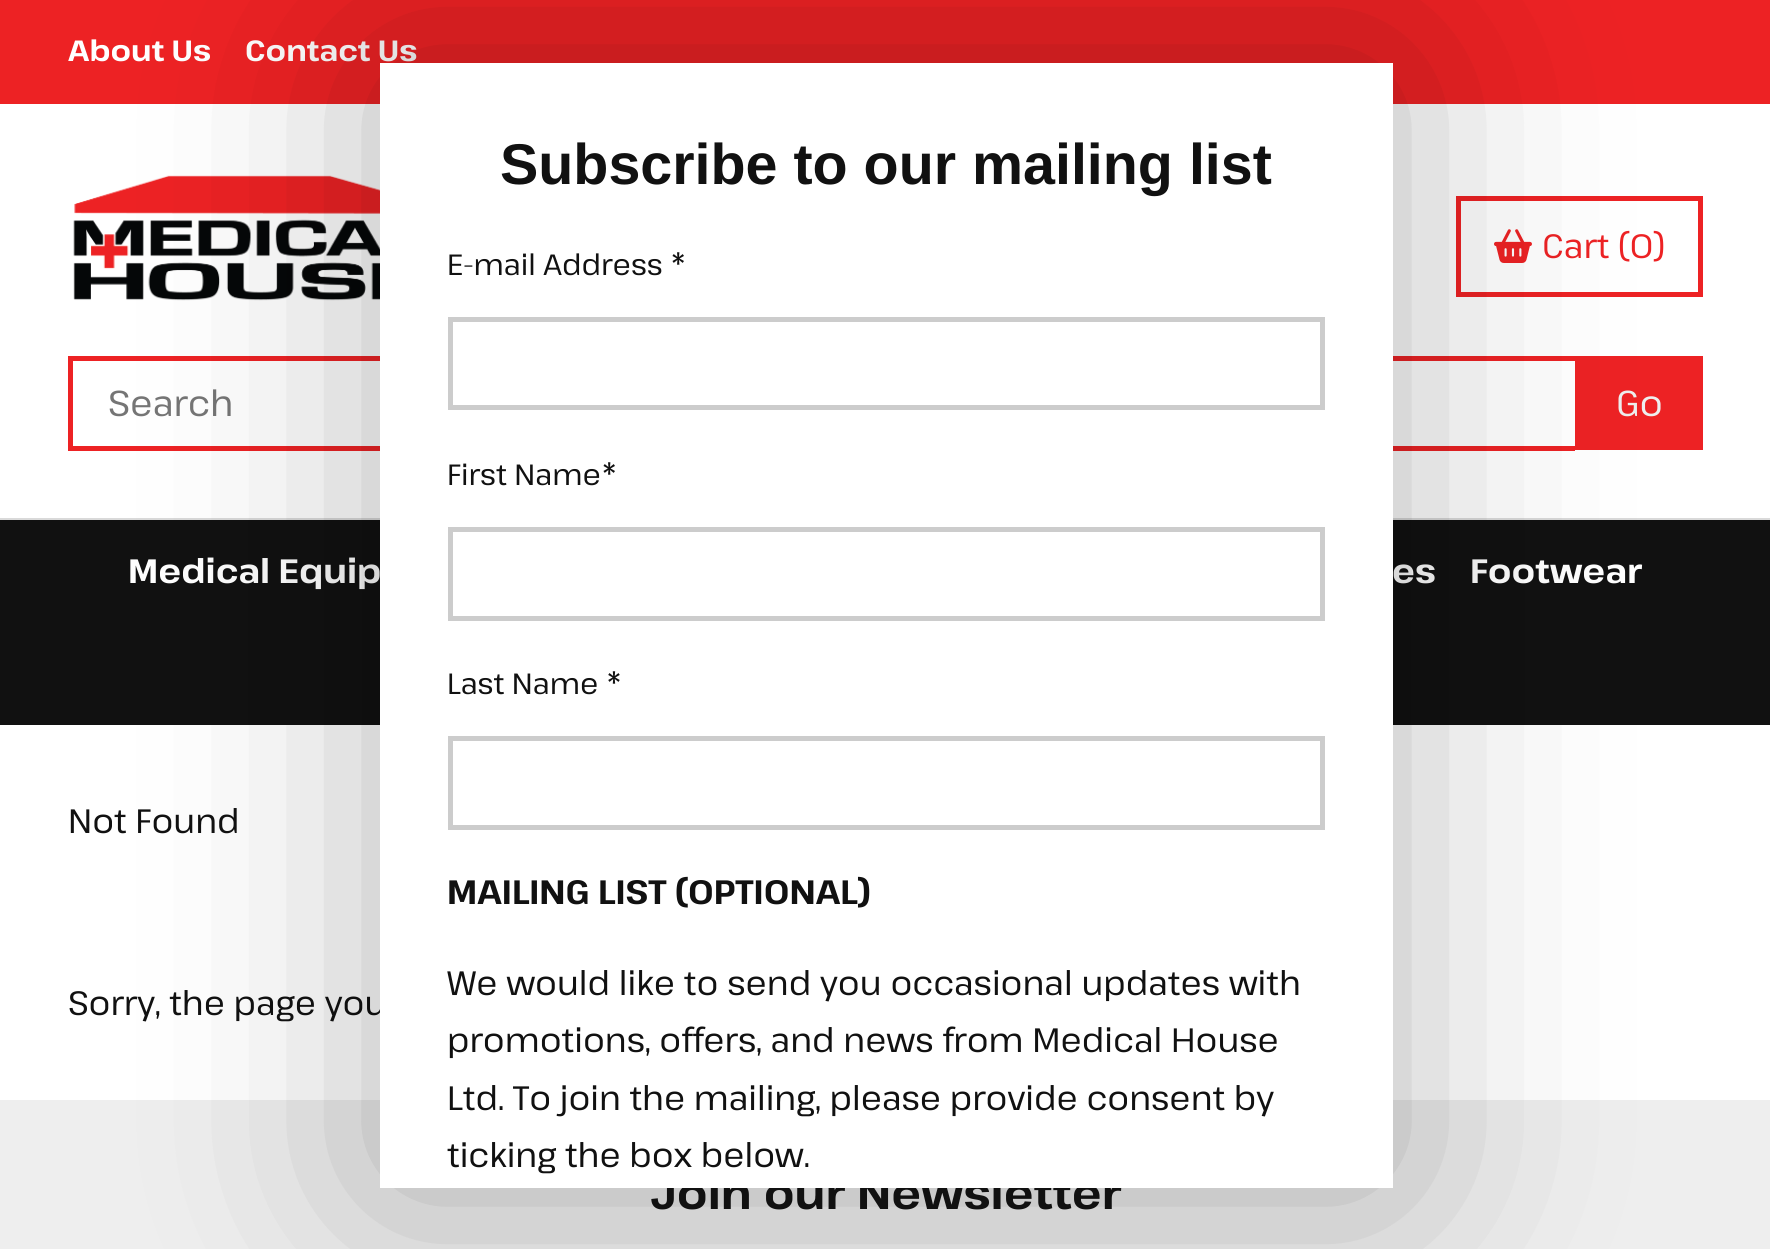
import math
import cairocffi as cairo

surface = cairo.ImageSurface(cairo.FORMAT_RGB24, 1770, 1249)
ctx = cairo.Context(surface)
options = cairo.FontOptions()
options.set_hint_metrics(cairo.HINT_METRICS_OFF)
options.set_hint_style(cairo.HINT_STYLE_NONE)
ctx.set_font_options(options)
ctx.set_miter_limit(4)


def rgb(r, g, b):
    ctx.set_source_rgb(r / 255, g / 255, b / 255)


def face(family, size, italic, bold):
    ctx.select_font_face(family, cairo.FONT_SLANT_ITALIC if italic else cairo.FONT_SLANT_NORMAL, cairo.FONT_WEIGHT_BOLD if bold else cairo.FONT_WEIGHT_NORMAL)
    ctx.set_font_size(size)


def label(x, y, s):
    ctx.move_to(x, y)
    ctx.show_text(s)


def tracked(x, y, s, letter, word):
    ctx.move_to(x, y)
    for ch in s:
        ctx.show_text(ch)
        ctx.rel_move_to(letter + word * (ch == ' '), 0)


def rect(x, y, w, h):
    ctx.rectangle(x, y, w, h)
    ctx.fill()


def rrect(x, y, w, h, r):
    ctx.new_sub_path()
    for i, (u, v) in enumerate([(x + w - r, y + h - r), (x + r, y + h - r), (x + r, y + r), (x + w - r, y + r)]):
        ctx.arc(u, v, r, i * math.pi / 2, (i + 1) * math.pi / 2)
    ctx.close_path()


def soft_shadow(x, y, w, h, r, blur, alpha):
    ctx.push_group_with_content(cairo.CONTENT_ALPHA)
    ctx.set_operator(cairo.OPERATOR_SOURCE)
    for i in range(15, -16, -2):
        e = blur * i / 6
        if min(w, h) + 2 * e > 0:
            ctx.set_source_rgba(0, 0, 0, alpha * math.erfc((i - 1) / 8.5) / 2)
            rrect(x - e, y - e, w + 2 * e, h + 2 * e, max(0, min(r + e + blur * .6, min(w, h) / 2 + e)))
            ctx.fill()
    ctx.mask(ctx.pop_group())


def image(path, x, y, w, h):
    ctx.save()
    ctx.set_source_surface(cairo.ImageSurface.create_from_png(path), x, y)
    ctx.rectangle(x, y, w, h)
    ctx.fill()
    ctx.restore()


rgb(255, 255, 255)
ctx.paint()
rgb(237, 34, 36)
rect(0, 0, 1770, 104)
face('Pathway Extreme', 29.25, 0, 1)
rgb(255, 255, 255)
label(68, 61, 'About Us')
label(245, 61, 'Contact Us')
rgb(217, 217, 217)
rect(0, 518, 1770, 2)
image('image0.png', 73, 175, 307, 126)
ctx.rectangle(1458.5, 198.5, 242, 96)
rgb(237, 34, 36)
ctx.set_line_width(5)
ctx.stroke()
image('image1.png', 1494, 229, 38, 34)
face('Pathway Extreme', 33.75, 0, 0)
label(1542, 258, 'Cart (0)')
rect(68, 356, 1507, 5)
rect(68, 446, 1507, 5)
rect(68, 356, 5, 94)
face('Pathway Extreme', 36, 0, 0)
rgb(117, 117, 117)
label(108, 416, 'Search')
rgb(237, 34, 36)
rect(1575, 356, 128, 94)
rgb(238, 238, 238)
label(1616, 416, 'Go')
rgb(17, 17, 17)
rect(0, 520, 1770, 205)
face('Pathway Extreme', 33.75, 0, 1)
rgb(255, 255, 255)
label(128, 583, 'Medical Equip')
label(1392, 583, 'es')
label(1470, 583, 'Footwear')
face('Pathway Extreme', 33.75, 0, 0)
rgb(17, 17, 17)
label(68, 833, 'Not Found')
label(68, 1015, 'Sorry, the page you')
rgb(238, 238, 238)
rect(0, 1100, 1770, 149)
rgb(0, 0, 0)
soft_shadow(380, 63, 1013, 1125, 0, 112.5, 0.3)
face('Pathway Extreme', 43.9, 0, 1)
rgb(17, 17, 17)
tracked(651, 1209, 'Join our Newsletter', 0, 1)
rgb(255, 255, 255)
rect(380, 63, 1013, 1125)
face('Liberation Sans', 57.4, 0, 1)
rgb(17, 17, 17)
label(500, 184, 'Subscribe to our mailing list')
face('Pathway Extreme', 29.25, 0, 0)
label(447, 275, 'E-mail Address *')
ctx.rectangle(450.5, 319.5, 872, 88)
rgb(204, 204, 204)
ctx.stroke()
rgb(17, 17, 17)
label(447, 485, 'First Name*')
ctx.rectangle(450.5, 529.5, 872, 89)
rgb(204, 204, 204)
ctx.stroke()
rgb(17, 17, 17)
label(447, 694, 'Last Name *')
ctx.rectangle(450.5, 738.5, 872, 89)
rgb(204, 204, 204)
ctx.stroke()
face('Pathway Extreme', 33.75, 0, 1)
rgb(17, 17, 17)
label(447, 904, 'MAILING LIST (OPTIONAL)')
face('Pathway Extreme', 33.75, 0, 0)
tracked(447, 995, 'We would like to send you occasional updates with', 0, 0.25)
tracked(447, 1052, 'promotions, offers, and news from Medical House', 0, 0.25)
label(447, 1110, 'Ltd. To join the mailing, please provide consent by')
label(447, 1167, 'ticking the box below.')
surface.write_to_png('render.png')
